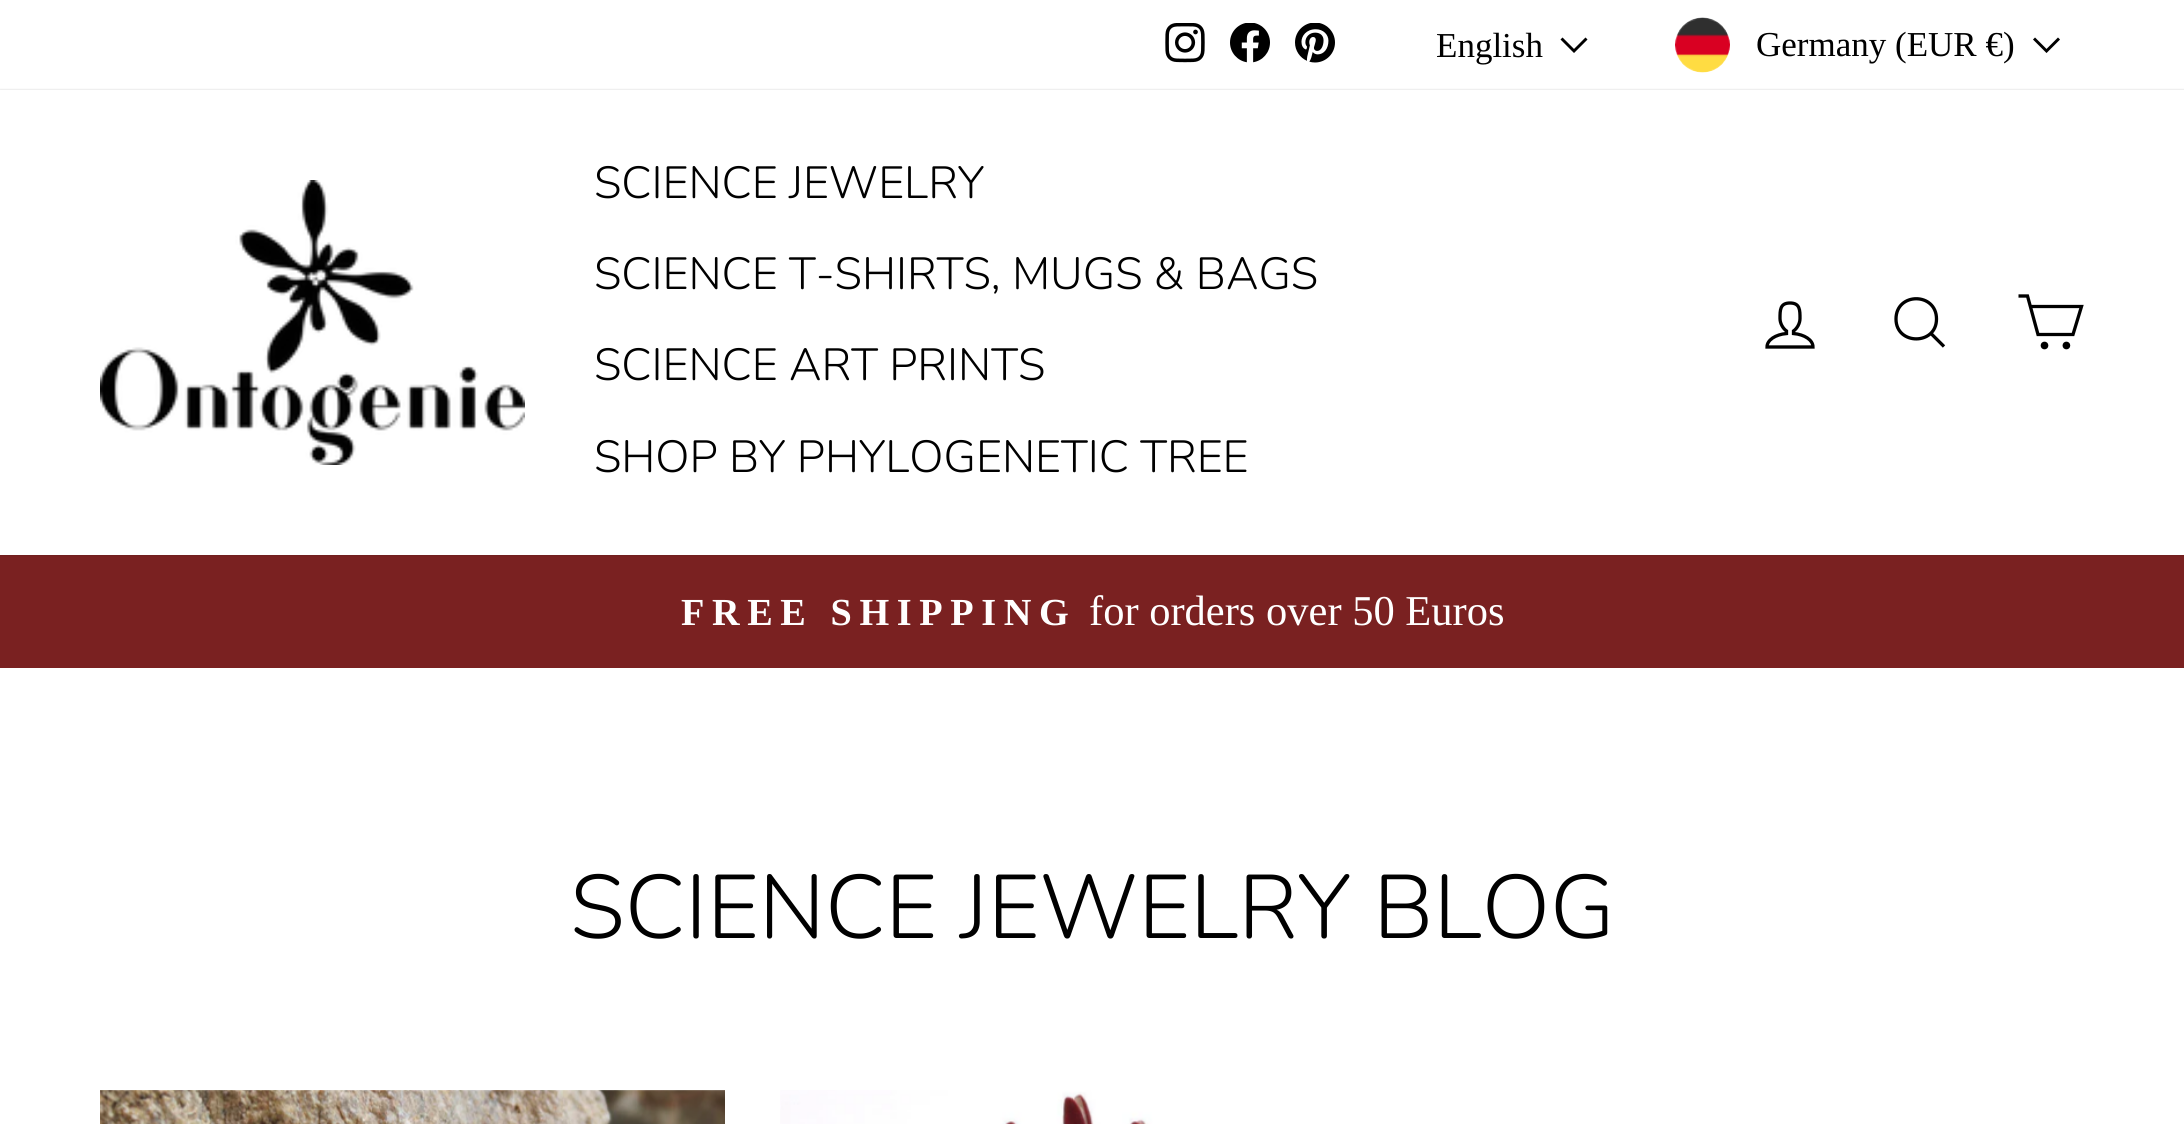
import math
import cairocffi as cairo

surface = cairo.ImageSurface(cairo.FORMAT_RGB24, 2184, 1124)
ctx = cairo.Context(surface)
options = cairo.FontOptions()
options.set_hint_metrics(cairo.HINT_METRICS_OFF)
options.set_hint_style(cairo.HINT_STYLE_NONE)
ctx.set_font_options(options)
ctx.set_miter_limit(4)


def rgb(r, g, b):
    ctx.set_source_rgb(r / 255, g / 255, b / 255)


def face(family, size, italic, bold):
    ctx.select_font_face(family, cairo.FONT_SLANT_ITALIC if italic else cairo.FONT_SLANT_NORMAL, cairo.FONT_WEIGHT_BOLD if bold else cairo.FONT_WEIGHT_NORMAL)
    ctx.set_font_size(size)


def label(x, y, s):
    ctx.move_to(x, y)
    ctx.show_text(s)


def tracked(x, y, s, letter, word):
    ctx.move_to(x, y)
    for ch in s:
        ctx.show_text(ch)
        ctx.rel_move_to(letter + word * (ch == ' '), 0)


def rect(x, y, w, h):
    ctx.rectangle(x, y, w, h)
    ctx.fill()


def rrect(x, y, w, h, r):
    ctx.new_sub_path()
    for i, (u, v) in enumerate([(x + w - r, y + h - r), (x + r, y + h - r), (x + r, y + r), (x + w - r, y + r)]):
        ctx.arc(u, v, r, i * math.pi / 2, (i + 1) * math.pi / 2)
    ctx.close_path()


def soft_shadow(x, y, w, h, r, blur, alpha):
    ctx.push_group_with_content(cairo.CONTENT_ALPHA)
    ctx.set_operator(cairo.OPERATOR_SOURCE)
    for i in range(15, -16, -2):
        e = blur * i / 6
        if min(w, h) + 2 * e > 0:
            ctx.set_source_rgba(0, 0, 0, alpha * math.erfc((i - 1) / 8.5) / 2)
            rrect(x - e, y - e, w + 2 * e, h + 2 * e, max(0, min(r + e + blur * .6, min(w, h) / 2 + e)))
            ctx.fill()
    ctx.mask(ctx.pop_group())


def image(path, x, y, w, h):
    ctx.save()
    ctx.set_source_surface(cairo.ImageSurface.create_from_png(path), x, y)
    ctx.rectangle(x, y, w, h)
    ctx.fill()
    ctx.restore()


rgb(255, 255, 255)
ctx.paint()
image('image0.png', 1165, 23, 40, 40)
image('image1.png', 1230, 23, 40, 40)
image('image2.png', 1295, 23, 40, 40)
face('Liberation Serif', 35, 0, 0)
rgb(0, 0, 0)
label(1436, 57, 'English')
ctx.new_path()
ctx.move_to(1561.5, 38.5)
ctx.line_to(1574, 51)
ctx.line_to(1586.5, 38.5)
ctx.set_line_width(2.9)
ctx.stroke()
image('image3.png', 1675, 17, 55, 56)
label(1756, 56, 'Germany (EUR €)')
ctx.new_path()
ctx.move_to(2034, 38.5)
ctx.line_to(2046.5, 51)
ctx.line_to(2059, 38.5)
ctx.stroke()
rgb(122, 33, 33)
rect(0, 555, 2184, 113)
ctx.save()
ctx.set_fill_rule(cairo.FILL_RULE_EVEN_ODD)
ctx.new_path()
ctx.move_to(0, 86)
ctx.line_to(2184, 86)
ctx.line_to(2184, 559)
ctx.line_to(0, 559)
ctx.close_path()
ctx.move_to(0, 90)
ctx.line_to(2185, 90)
ctx.line_to(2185, 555)
ctx.line_to(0, 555)
ctx.close_path()
ctx.clip()
rgb(0, 0, 0)
soft_shadow(0, 90, 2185, 465, 0, 1, 0.2)
ctx.restore()
image('image4.png', 100, 180, 425, 285)
face('Nunito Light', 45, 0, 0)
rgb(0, 0, 0)
label(594, 198, 'SCIENCE JEWELRY')
label(594, 289, 'SCIENCE T-SHIRTS, MUGS & BAGS')
label(594, 380, 'SCIENCE ART PRINTS')
label(594, 472, 'SHOP BY PHYLOGENETIC TREE')
ctx.new_path()
ctx.move_to(1793.5, 333.5)
ctx.line_to(1793.5, 331)
ctx.curve_to(1797, 328.5, 1800, 323.5, 1800, 318.5)
ctx.curve_to(1800, 310, 1800, 303, 1790, 303)
ctx.curve_to(1780, 303, 1780, 310, 1780, 318.5)
ctx.curve_to(1780, 323.5, 1783, 328.5, 1786.5, 331)
ctx.line_to(1786.5, 333.5)
ctx.curve_to(1775.5, 334.5, 1767, 340, 1767, 347)
ctx.line_to(1813, 347)
ctx.curve_to(1813, 340, 1804.5, 334.5, 1793.5, 333.5)
ctx.close_path()
ctx.set_line_width(3.3)
ctx.stroke()
ctx.new_path()
ctx.move_to(1936.5, 319)
ctx.curve_to(1936.5, 345.5, 1896, 345.5, 1896, 319)
ctx.curve_to(1896, 292, 1936.5, 292, 1936.5, 319)
ctx.close_path()
ctx.move_to(1944, 346.5)
ctx.line_to(1931, 333.5)
ctx.stroke()
ctx.new_path()
ctx.move_to(2030.5, 306.5)
ctx.line_to(2081.5, 306.5)
ctx.line_to(2073, 334.5)
ctx.line_to(2038, 334.5)
ctx.line_to(2027.5, 296)
ctx.line_to(2018.5, 296)
ctx.stroke()
ctx.arc(2044.5, 345.5, 2.2, 0, 2 * math.pi)
ctx.fill_preserve()
ctx.stroke()
ctx.arc(2066.4, 345.5, 2.2, 0, 2 * math.pi)
ctx.fill_preserve()
ctx.stroke()
face('Liberation Serif', 38.25, 0, 1)
rgb(255, 255, 255)
tracked(681, 625, 'FREE SHIPPING', 7.6, 0)
face('Liberation Serif', 42.5, 0, 0)
label(1089, 625, 'for orders over 50 Euros')
face('Nunito Light', 90, 0, 0)
rgb(0, 0, 0)
label(570, 938, 'SCIENCE JEWELRY BLOG')
image('image5.png', 100, 1090, 625, 34)
image('image6.png', 780, 1090, 625, 34)
surface.write_to_png('render.png')
